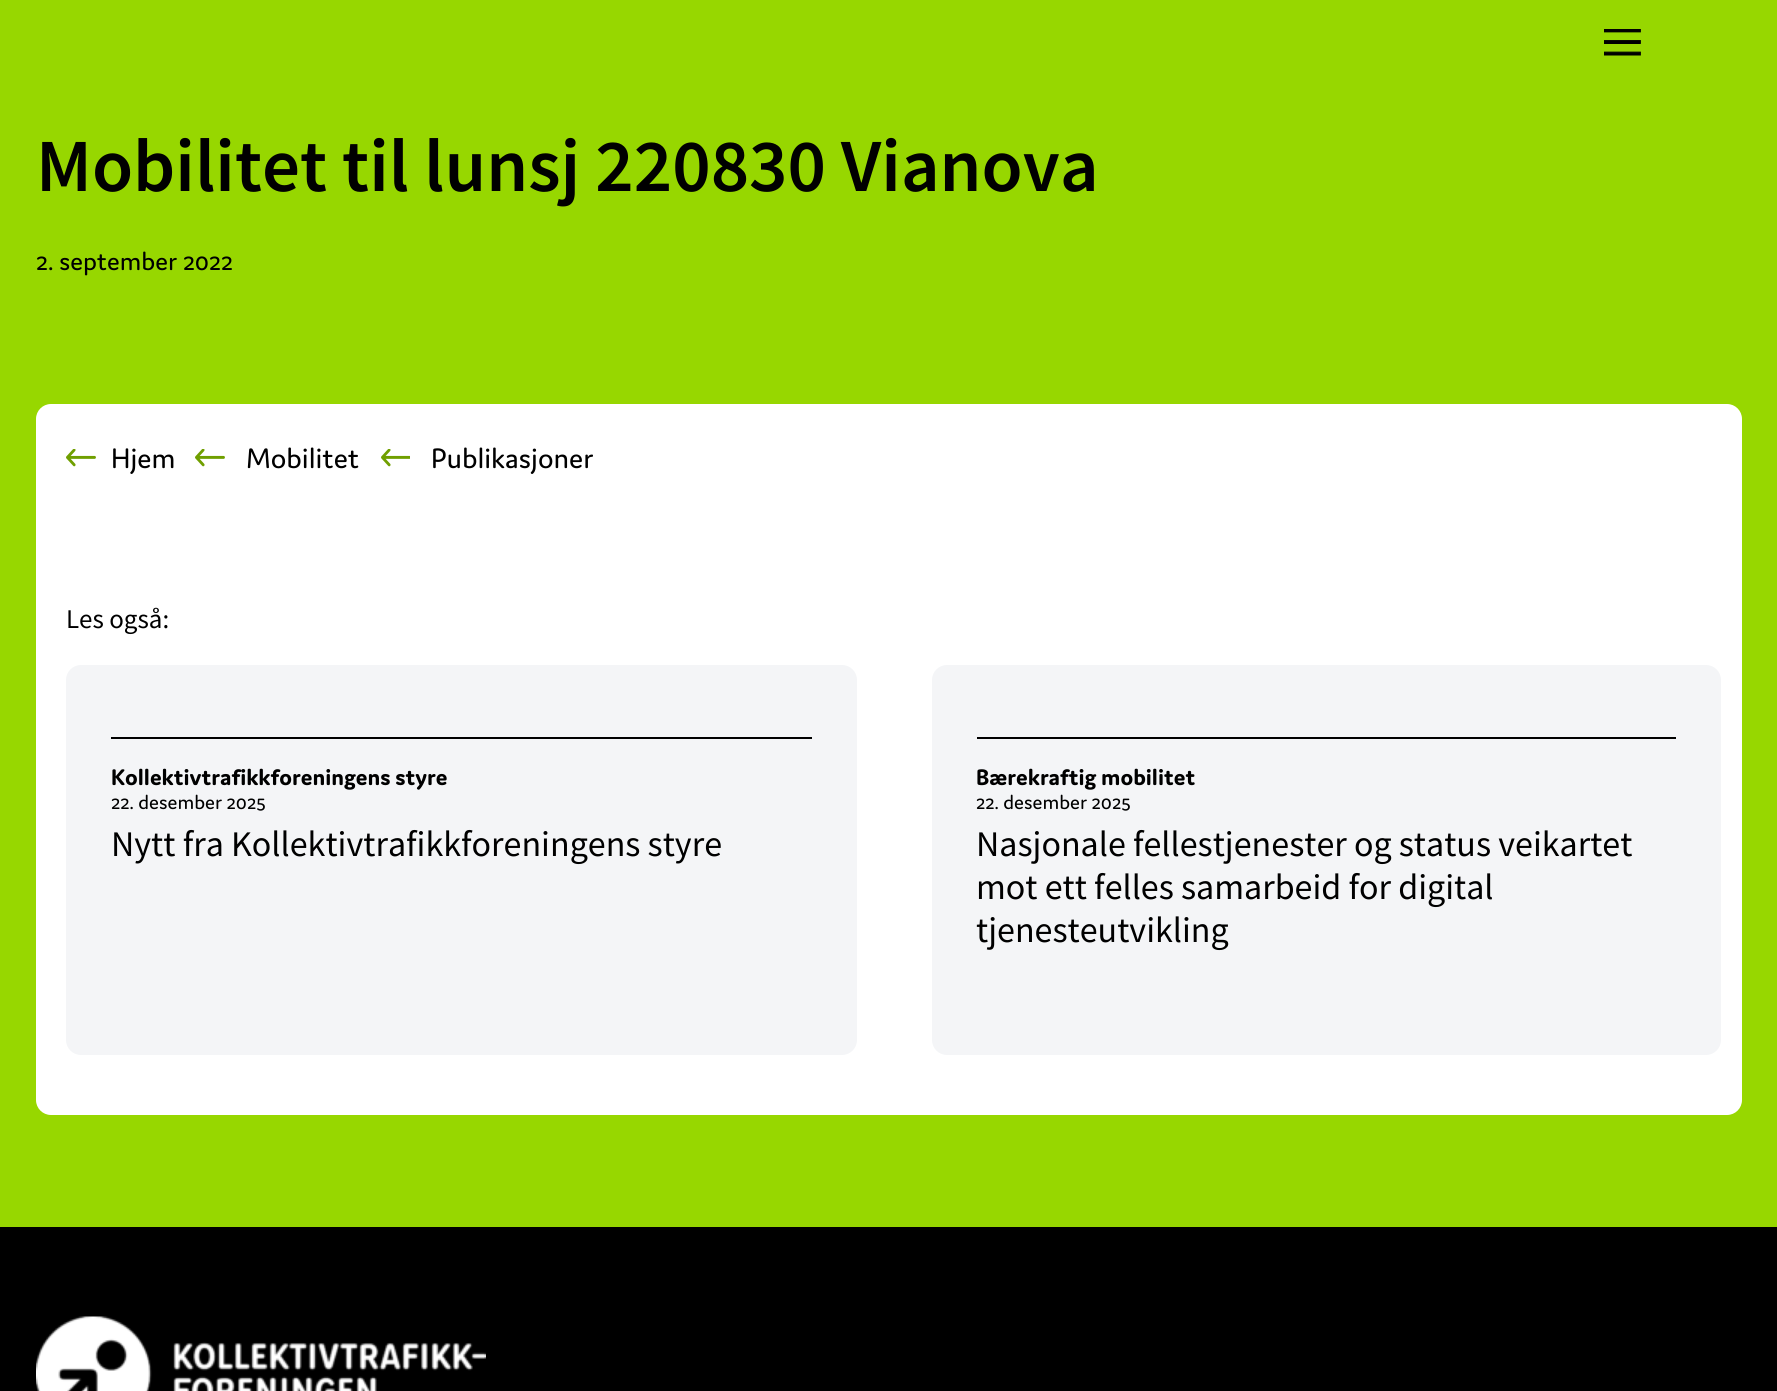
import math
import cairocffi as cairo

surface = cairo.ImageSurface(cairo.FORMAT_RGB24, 1777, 1391)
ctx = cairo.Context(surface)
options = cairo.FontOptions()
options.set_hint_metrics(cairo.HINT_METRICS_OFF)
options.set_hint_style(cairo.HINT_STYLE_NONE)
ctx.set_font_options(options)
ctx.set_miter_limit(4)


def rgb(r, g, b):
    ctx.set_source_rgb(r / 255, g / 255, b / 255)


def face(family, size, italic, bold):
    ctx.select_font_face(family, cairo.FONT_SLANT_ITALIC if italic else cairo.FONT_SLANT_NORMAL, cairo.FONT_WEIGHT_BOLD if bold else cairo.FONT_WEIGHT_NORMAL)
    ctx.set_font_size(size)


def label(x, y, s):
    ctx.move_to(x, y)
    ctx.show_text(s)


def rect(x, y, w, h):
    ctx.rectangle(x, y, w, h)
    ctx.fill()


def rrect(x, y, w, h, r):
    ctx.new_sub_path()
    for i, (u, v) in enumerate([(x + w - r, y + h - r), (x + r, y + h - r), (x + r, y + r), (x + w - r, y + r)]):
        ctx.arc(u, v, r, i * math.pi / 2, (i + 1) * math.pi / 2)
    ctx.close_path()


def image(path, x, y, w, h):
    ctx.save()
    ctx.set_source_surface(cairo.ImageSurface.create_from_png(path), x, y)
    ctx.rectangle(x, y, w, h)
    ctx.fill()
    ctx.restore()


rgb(151, 215, 0)
ctx.paint()
image('image0.png', 1604, 29, 37, 27)
face('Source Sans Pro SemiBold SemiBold', 75, 0, 0)
rgb(0, 0, 0)
label(36, 191, 'Mobilitet til lunsj 220830 Vianova')
face('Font', 27, 0, 0)
label(36, 270, '2. september 2022')
rgb(255, 255, 255)
rrect(36, 404, 1706, 711, 15)
ctx.fill()
image('image1.png', 66, 449, 30, 18)
face('Font', 30, 0, 0)
rgb(0, 0, 0)
label(111, 468, 'Hjem')
image('image1.png', 195, 449, 30, 18)
label(246, 468, 'Mobilitet')
image('image2.png', 381, 449, 29, 18)
label(431, 468, 'Publikasjoner')
face('Source Sans Pro', 27, 0, 0)
label(66, 628, 'Les også:')
rgb(244, 245, 247)
rrect(66, 665, 791, 390, 15)
ctx.fill()
rgb(0, 0, 0)
rect(111, 737, 701, 2)
face('Font SemiBold', 24, 0, 0)
label(111, 785, 'Kollektivtrafikkforeningens styre')
face('Font', 21, 0, 0)
label(111, 809, '22. desember 2025')
face('Source Sans Pro', 36, 0, 0)
label(111, 856, 'Nytt fra Kollektivtrafikkforeningens styre')
rgb(244, 245, 247)
rrect(932, 665, 789, 390, 15)
ctx.fill()
rgb(0, 0, 0)
rect(977, 737, 699, 2)
face('Font SemiBold', 24, 0, 0)
label(976, 785, 'Bærekraftig mobilitet')
face('Font', 21, 0, 0)
label(976, 809, '22. desember 2025')
face('Source Sans Pro', 36, 0, 0)
label(976, 856, 'Nasjonale fellestjenester og status veikartet')
label(976, 899, 'mot ett felles samarbeid for digital')
label(976, 942, 'tjenesteutvikling')
rect(0, 1227, 1777, 164)
image('image3.png', 36, 1316, 450, 75)
surface.write_to_png('render.png')
